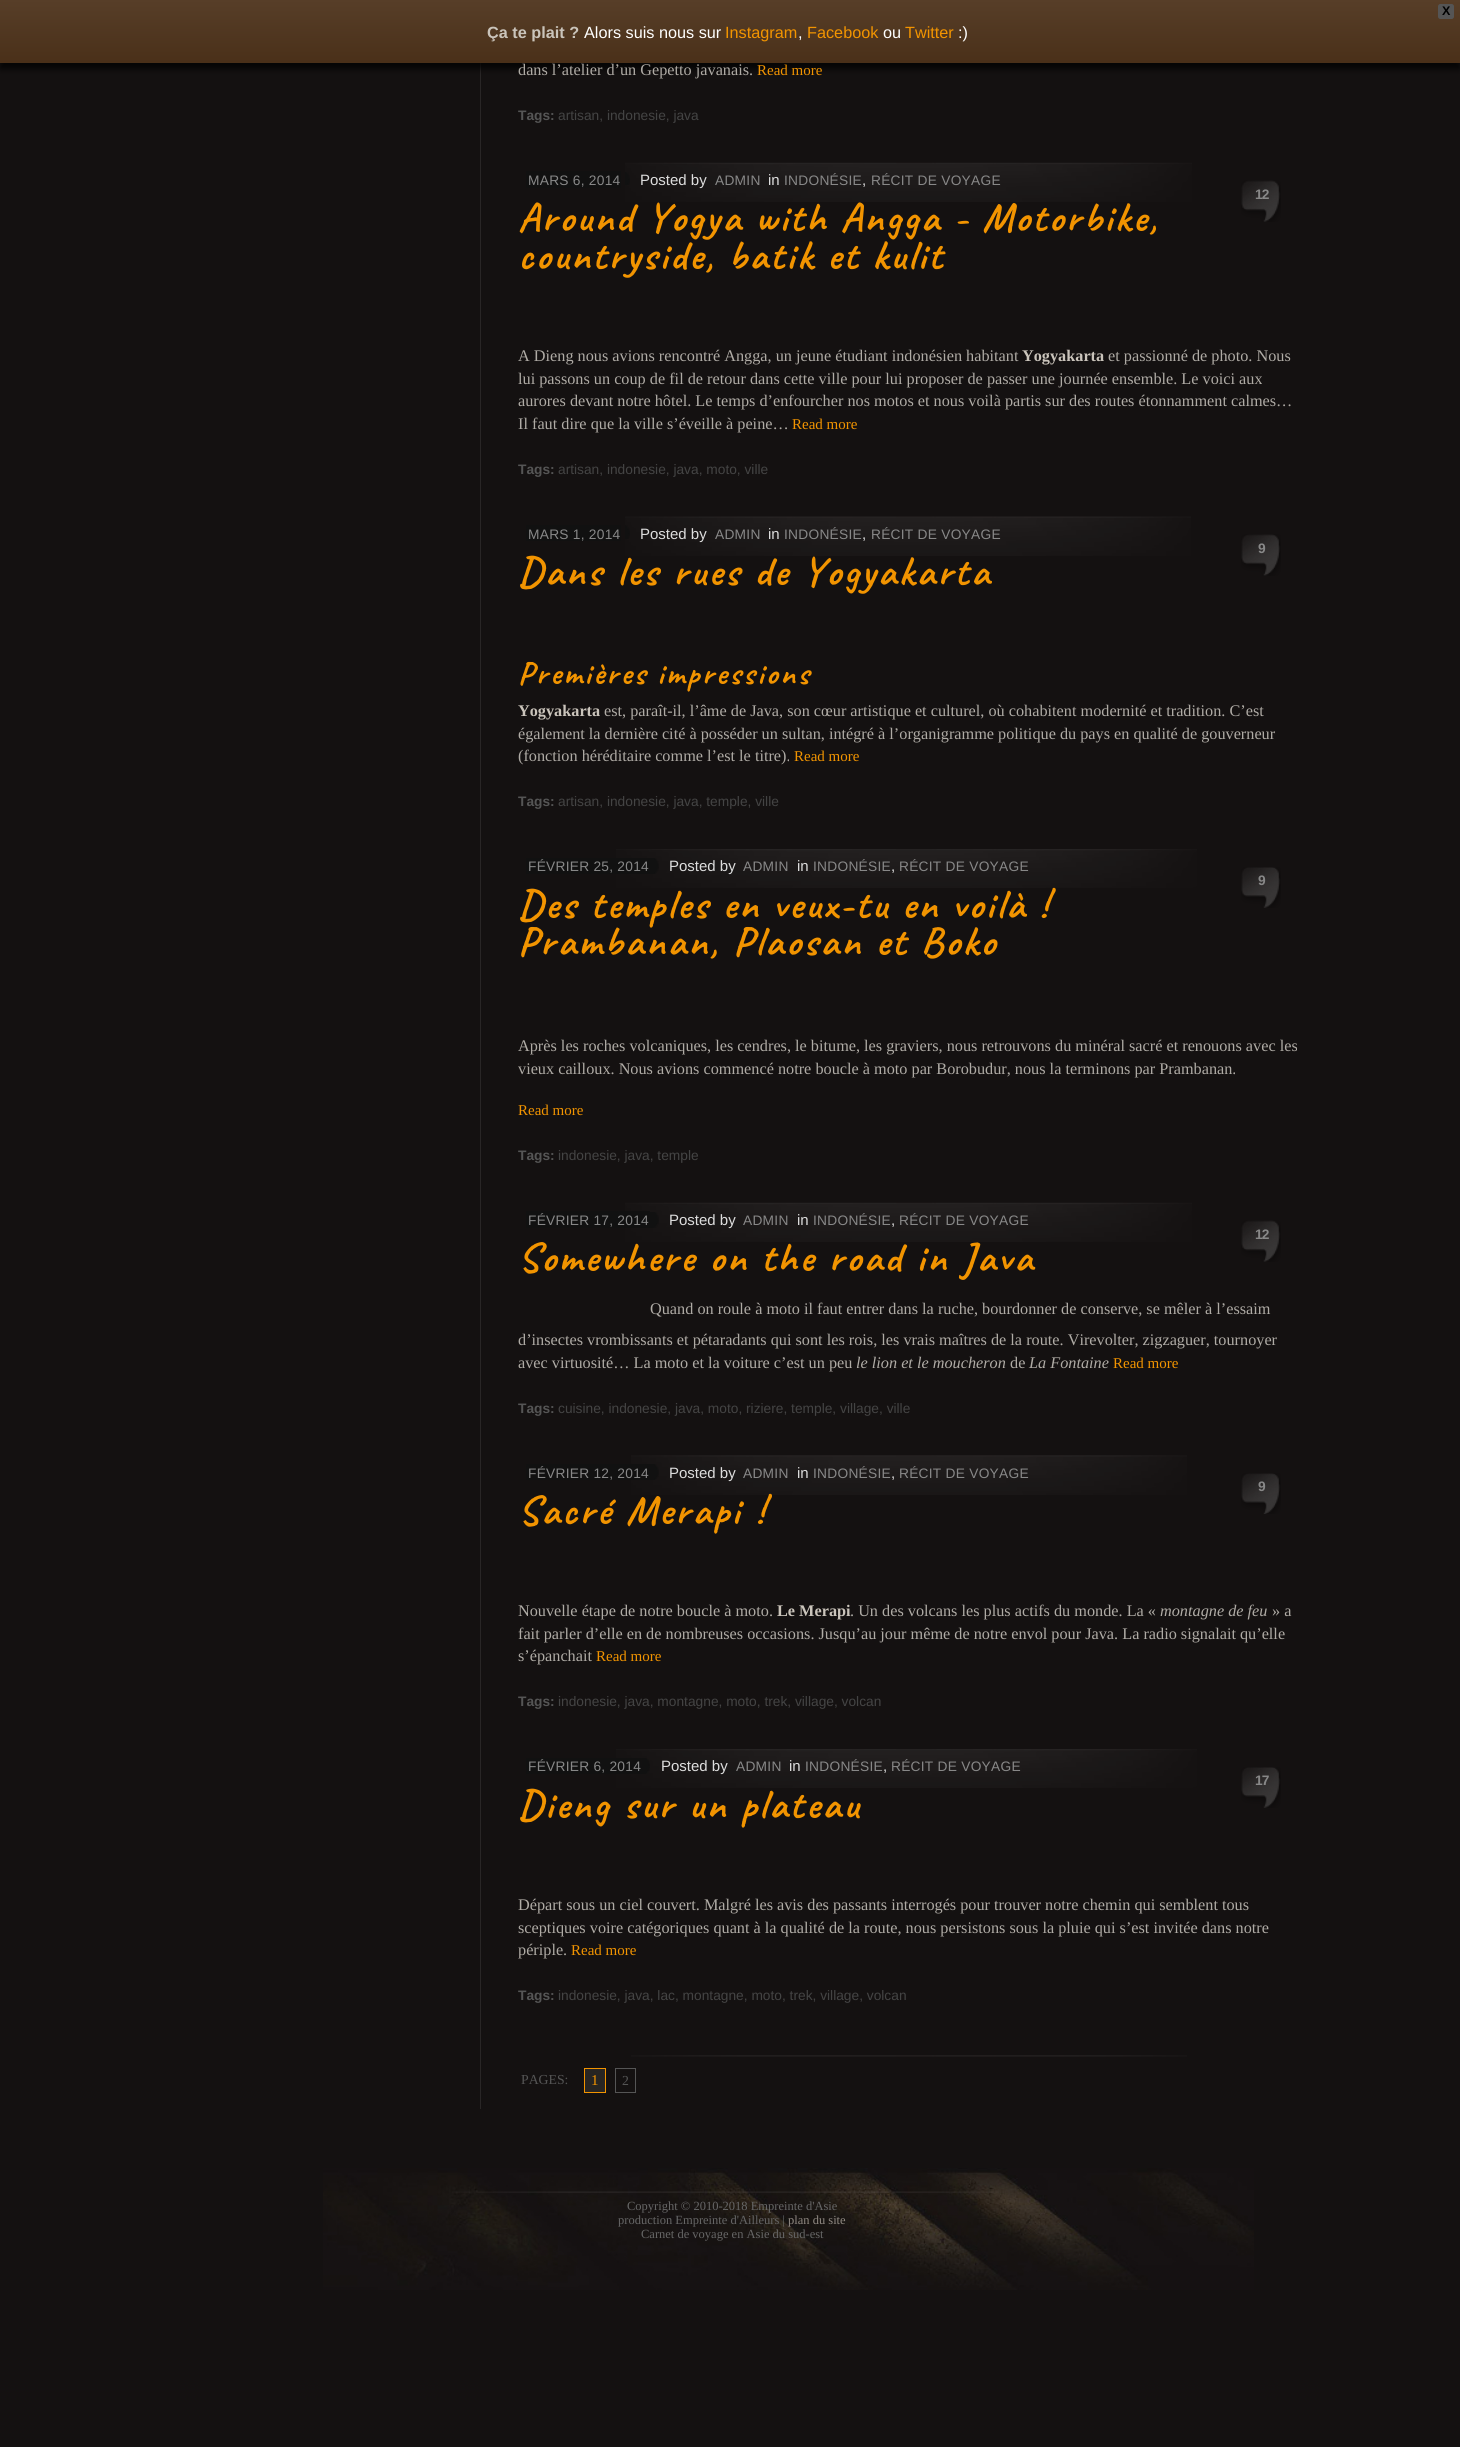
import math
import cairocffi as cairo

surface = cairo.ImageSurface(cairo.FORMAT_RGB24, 1460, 2447)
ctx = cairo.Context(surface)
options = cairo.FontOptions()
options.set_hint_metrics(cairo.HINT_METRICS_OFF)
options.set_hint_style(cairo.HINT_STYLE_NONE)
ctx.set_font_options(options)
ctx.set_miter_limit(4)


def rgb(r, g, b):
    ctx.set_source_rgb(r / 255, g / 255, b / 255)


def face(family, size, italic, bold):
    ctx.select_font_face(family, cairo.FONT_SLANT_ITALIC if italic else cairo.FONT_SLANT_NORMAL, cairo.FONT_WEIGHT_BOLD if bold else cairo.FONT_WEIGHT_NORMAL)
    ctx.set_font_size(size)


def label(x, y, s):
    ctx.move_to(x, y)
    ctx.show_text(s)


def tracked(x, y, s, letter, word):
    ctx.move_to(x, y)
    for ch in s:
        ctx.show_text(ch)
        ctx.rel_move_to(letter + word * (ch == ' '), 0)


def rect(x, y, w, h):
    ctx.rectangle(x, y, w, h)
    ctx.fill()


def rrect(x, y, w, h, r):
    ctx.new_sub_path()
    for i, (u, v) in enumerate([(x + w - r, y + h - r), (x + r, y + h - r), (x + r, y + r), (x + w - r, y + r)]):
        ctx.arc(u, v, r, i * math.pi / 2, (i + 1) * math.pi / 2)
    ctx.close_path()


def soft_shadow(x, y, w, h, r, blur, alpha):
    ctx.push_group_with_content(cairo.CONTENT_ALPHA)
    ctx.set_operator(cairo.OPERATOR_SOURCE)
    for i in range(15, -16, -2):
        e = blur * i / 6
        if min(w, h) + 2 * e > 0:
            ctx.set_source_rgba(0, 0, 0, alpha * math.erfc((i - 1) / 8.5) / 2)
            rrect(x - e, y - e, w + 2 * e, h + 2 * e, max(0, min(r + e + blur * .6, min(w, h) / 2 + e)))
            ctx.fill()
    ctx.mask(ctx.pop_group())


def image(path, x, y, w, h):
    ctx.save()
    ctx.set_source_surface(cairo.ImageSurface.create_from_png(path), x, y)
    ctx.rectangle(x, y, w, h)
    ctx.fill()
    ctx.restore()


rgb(20, 17, 17)
ctx.paint()
image('image0.png', 480, 63, 1, 2046)
rgb(0, 0, 0)
soft_shadow(0, 6, 1460, 63, 0, 3, 0.75)
gradient = cairo.LinearGradient(730, 0, 730, 63)
gradient.add_color_stop_rgba(0, 0.341, 0.243, 0.157, 1)
gradient.add_color_stop_rgba(1, 0.29, 0.188, 0.098, 1)
ctx.set_source(gradient)
rect(0, 0, 1460, 63)
rgb(85, 85, 85)
rrect(1438.5, 4.5, 15, 14, 2)
ctx.fill_preserve()
ctx.set_line_width(1)
ctx.stroke()
face('Liberation Sans', 12.5, 0, 1)
rgb(0, 0, 0)
label(1442, 15, 'X')
face('Liberation Sans', 16.25, 0, 1)
rgb(202, 196, 187)
label(487, 38, 'Ça te plait ?')
face('Liberation Sans', 16.25, 0, 0)
rgb(255, 255, 255)
label(584, 38, 'Alors suis nous sur')
rgb(242, 148, 0)
label(725, 38, 'Instagram')
rgb(255, 255, 255)
label(798, 38, ',')
rgb(242, 148, 0)
label(807, 38, 'Facebook')
rgb(255, 255, 255)
label(883, 38, 'ou')
rgb(242, 148, 0)
label(905, 38, 'Twitter')
rgb(255, 255, 255)
label(958, 38, ':)')
face('Liberation Serif', 16.25, 0, 0)
rgb(175, 171, 165)
label(518, 75, 'dans l’atelier d’un Gepetto javanais.')
face('Liberation Serif', 15, 0, 0)
rgb(242, 148, 0)
label(757, 75, 'Read more')
face('Liberation Sans', 13.75, 0, 1)
rgb(85, 85, 85)
label(518, 120, 'Tags:')
face('Liberation Sans', 13.75, 0, 0)
rgb(68, 68, 68)
label(558, 120, 'artisan, indonesie, java')
image('image1.png', 625, 162, 567, 40)
rgb(17, 17, 17)
rect(526, 171, 95, 17)
rgb(136, 136, 136)
tracked(528, 185, 'MARS 6, 2014', 0.25, 0)
image('image2.png', 625, 172, 5, 13)
face('Liberation Sans', 15, 0, 0)
rgb(221, 221, 221)
label(640, 185, 'Posted by')
face('Liberation Sans', 13.75, 0, 0)
rgb(136, 136, 136)
tracked(715, 185, 'ADMIN', 0.25, 0)
face('Liberation Sans', 15, 0, 0)
rgb(221, 221, 221)
label(768, 185, 'in')
face('Liberation Sans', 13.75, 0, 0)
rgb(136, 136, 136)
tracked(784, 185, 'INDONÉSIE', 0.25, 0)
face('Liberation Sans', 15, 0, 0)
rgb(221, 221, 221)
label(862, 185, ',')
face('Liberation Sans', 13.75, 0, 0)
rgb(136, 136, 136)
tracked(871, 185, 'RÉCIT DE VOYAGE', 0.25, 0)
image('image3.png', 1241, 180, 40, 42)
face('Liberation Sans', 13.75, 0, 1)
tracked(1255, 199, '12', -1, 0)
face('Caveat', 41.25, 0, 1)
rgb(242, 148, 0)
tracked(518, 231, 'Around Yogya with Angga - Motorbike,', 2.5, 0)
tracked(518, 269, 'countryside, batik et kulit', 2.5, 0)
face('Liberation Serif', 16.25, 0, 0)
rgb(175, 171, 165)
label(518, 361, 'A Dieng nous avions rencontré Angga, un jeune étudiant indonésien habitant')
face('Liberation Serif', 16.25, 0, 1)
rgb(202, 196, 187)
label(1022, 361, 'Yogyakarta')
face('Liberation Serif', 16.25, 0, 0)
rgb(175, 171, 165)
label(1108, 361, 'et passionné de photo. Nous')
label(518, 384, 'lui passons un coup de fil de retour dans cette ville pour lui proposer de passer une journée ensemble. Le voici aux')
label(518, 406, 'aurores devant notre hôtel. Le temps d’enfourcher nos motos et nous voilà partis sur des routes étonnamment calmes…')
label(518, 429, 'Il faut dire que la ville s’éveille à peine…')
face('Liberation Serif', 15, 0, 0)
rgb(242, 148, 0)
label(792, 429, 'Read more')
face('Liberation Sans', 13.75, 0, 1)
rgb(85, 85, 85)
label(518, 474, 'Tags:')
face('Liberation Sans', 13.75, 0, 0)
rgb(68, 68, 68)
label(558, 474, 'artisan, indonesie, java, moto, ville')
image('image4.png', 625, 516, 566, 40)
rgb(17, 17, 17)
rect(526, 525, 95, 16)
rgb(136, 136, 136)
tracked(528, 539, 'MARS 1, 2014', 0.25, 0)
image('image5.png', 625, 525, 5, 14)
face('Liberation Sans', 15, 0, 0)
rgb(221, 221, 221)
label(640, 539, 'Posted by')
face('Liberation Sans', 13.75, 0, 0)
rgb(136, 136, 136)
tracked(715, 539, 'ADMIN', 0.25, 0)
face('Liberation Sans', 15, 0, 0)
rgb(221, 221, 221)
label(768, 539, 'in')
face('Liberation Sans', 13.75, 0, 0)
rgb(136, 136, 136)
tracked(784, 539, 'INDONÉSIE', 0.25, 0)
face('Liberation Sans', 15, 0, 0)
rgb(221, 221, 221)
label(862, 539, ',')
face('Liberation Sans', 13.75, 0, 0)
rgb(136, 136, 136)
tracked(871, 539, 'RÉCIT DE VOYAGE', 0.25, 0)
image('image6.png', 1241, 534, 40, 42)
face('Liberation Sans', 13.75, 0, 1)
tracked(1258, 553, '9', -1, 0)
face('Caveat', 41.25, 0, 1)
rgb(242, 148, 0)
tracked(518, 585, 'Dans les rues de Yogyakarta', 2.5, 0.5)
face('Caveat', 32.5, 0, 1)
tracked(518, 684, 'Premières impressions', 2.5, -1)
face('Liberation Serif', 16.25, 0, 1)
rgb(202, 196, 187)
label(518, 716, 'Yogyakarta')
face('Liberation Serif', 16.25, 0, 0)
rgb(175, 171, 165)
label(604, 716, 'est, paraît-il, l’âme de Java, son cœur artistique et culturel, où cohabitent modernité et tradition. C’est')
label(518, 739, 'également la dernière cité à posséder un sultan, intégré à l’organigramme politique du pays en qualité de gouverneur')
label(518, 761, '(fonction héréditaire comme l’est le titre).')
face('Liberation Serif', 15, 0, 0)
rgb(242, 148, 0)
label(794, 761, 'Read more')
face('Liberation Sans', 13.75, 0, 1)
rgb(85, 85, 85)
label(518, 806, 'Tags:')
face('Liberation Sans', 13.75, 0, 0)
rgb(68, 68, 68)
label(558, 806, 'artisan, indonesie, java, temple, ville')
image('image7.png', 616, 849, 581, 39)
rgb(17, 17, 17)
rect(526, 858, 124, 16)
rgb(136, 136, 136)
tracked(528, 871, 'FÉVRIER 25, 2014', 0.25, 0)
image('image8.png', 650, 858, 9, 16)
face('Liberation Sans', 15, 0, 0)
rgb(221, 221, 221)
label(669, 871, 'Posted by')
face('Liberation Sans', 13.75, 0, 0)
rgb(136, 136, 136)
tracked(743, 871, 'ADMIN', 0.25, 0)
face('Liberation Sans', 15, 0, 0)
rgb(221, 221, 221)
label(797, 871, 'in')
face('Liberation Sans', 13.75, 0, 0)
rgb(136, 136, 136)
tracked(813, 871, 'INDONÉSIE', 0.25, 0)
face('Liberation Sans', 15, 0, 0)
rgb(221, 221, 221)
label(891, 871, ',')
face('Liberation Sans', 13.75, 0, 0)
rgb(136, 136, 136)
tracked(899, 871, 'RÉCIT DE VOYAGE', 0.25, 0)
image('image9.png', 1241, 867, 40, 41)
face('Liberation Sans', 13.75, 0, 1)
tracked(1258, 885, '9', -1, 0)
face('Caveat', 41.25, 0, 1)
rgb(242, 148, 0)
tracked(518, 918, 'Des temples en veux-tu en voilà !', 2.5, 0)
tracked(518, 955, 'Prambanan, Plaosan et Boko', 2.5, 0.5)
face('Liberation Serif', 16.25, 0, 0)
rgb(175, 171, 165)
label(518, 1051, 'Après les roches volcaniques, les cendres, le bitume, les graviers, nous retrouvons du minéral sacré et renouons avec les')
label(518, 1074, 'vieux cailloux. Nous avions commencé notre boucle à moto par Borobudur, nous la terminons par Prambanan.')
face('Liberation Serif', 15, 0, 0)
rgb(242, 148, 0)
label(518, 1115, 'Read more')
face('Liberation Sans', 13.75, 0, 1)
rgb(85, 85, 85)
label(518, 1160, 'Tags:')
face('Liberation Sans', 13.75, 0, 0)
rgb(68, 68, 68)
label(558, 1160, 'indonesie, java, temple')
image('image1.png', 625, 1202, 567, 40)
rgb(17, 17, 17)
rect(526, 1211, 124, 17)
rgb(136, 136, 136)
tracked(528, 1225, 'FÉVRIER 17, 2014', 0.25, 0)
image('image10.png', 650, 1212, 9, 16)
face('Liberation Sans', 15, 0, 0)
rgb(221, 221, 221)
label(669, 1225, 'Posted by')
face('Liberation Sans', 13.75, 0, 0)
rgb(136, 136, 136)
tracked(743, 1225, 'ADMIN', 0.25, 0)
face('Liberation Sans', 15, 0, 0)
rgb(221, 221, 221)
label(797, 1225, 'in')
face('Liberation Sans', 13.75, 0, 0)
rgb(136, 136, 136)
tracked(813, 1225, 'INDONÉSIE', 0.25, 0)
face('Liberation Sans', 15, 0, 0)
rgb(221, 221, 221)
label(891, 1225, ',')
face('Liberation Sans', 13.75, 0, 0)
rgb(136, 136, 136)
tracked(899, 1225, 'RÉCIT DE VOYAGE', 0.25, 0)
image('image11.png', 1241, 1220, 40, 42)
face('Liberation Sans', 13.75, 0, 1)
tracked(1255, 1239, '12', -1, 0)
face('Caveat', 41.25, 0, 1)
rgb(242, 148, 0)
tracked(518, 1271, 'Somewhere on the road in Java', 2.5, 0.5)
face('Liberation Serif', 16.25, 0, 0)
rgb(175, 171, 165)
label(650, 1314, 'Quand on roule à moto il faut entrer dans la ruche, bourdonner de conserve, se mêler à l’essaim')
label(518, 1345, 'd’insectes vrombissants et pétaradants qui sont les rois, les vrais maîtres de la route. Virevolter, zigzaguer, tournoyer')
label(518, 1368, 'avec virtuosité… La moto et la voiture c’est un peu')
face('Liberation Serif', 16.25, 1, 0)
label(856, 1368, 'le lion et le moucheron')
face('Liberation Serif', 16.25, 0, 0)
label(1010, 1368, 'de')
face('Liberation Serif', 16.25, 1, 0)
label(1029, 1368, 'La Fontaine')
face('Liberation Serif', 15, 0, 0)
rgb(242, 148, 0)
label(1113, 1368, 'Read more')
face('Liberation Sans', 13.75, 0, 1)
rgb(85, 85, 85)
label(518, 1413, 'Tags:')
face('Liberation Sans', 13.75, 0, 0)
rgb(68, 68, 68)
label(558, 1413, 'cuisine, indonesie, java, moto, riziere, temple, village, ville')
image('image12.png', 631, 1455, 556, 40)
rgb(17, 17, 17)
rect(526, 1464, 124, 16)
rgb(136, 136, 136)
tracked(528, 1478, 'FÉVRIER 12, 2014', 0.25, 0)
image('image13.png', 650, 1464, 9, 16)
face('Liberation Sans', 15, 0, 0)
rgb(221, 221, 221)
label(669, 1478, 'Posted by')
face('Liberation Sans', 13.75, 0, 0)
rgb(136, 136, 136)
tracked(743, 1478, 'ADMIN', 0.25, 0)
face('Liberation Sans', 15, 0, 0)
rgb(221, 221, 221)
label(797, 1478, 'in')
face('Liberation Sans', 13.75, 0, 0)
rgb(136, 136, 136)
tracked(813, 1478, 'INDONÉSIE', 0.25, 0)
face('Liberation Sans', 15, 0, 0)
rgb(221, 221, 221)
label(891, 1478, ',')
face('Liberation Sans', 13.75, 0, 0)
rgb(136, 136, 136)
tracked(899, 1478, 'RÉCIT DE VOYAGE', 0.25, 0)
image('image14.png', 1241, 1473, 40, 41)
face('Liberation Sans', 13.75, 0, 1)
tracked(1258, 1491, '9', -1, 0)
face('Caveat', 41.25, 0, 1)
rgb(242, 148, 0)
tracked(518, 1524, 'Sacré Merapi !', 2.5, 1)
face('Liberation Serif', 16.25, 0, 0)
rgb(175, 171, 165)
label(518, 1616, 'Nouvelle étape de notre boucle à moto.')
face('Liberation Serif', 16.25, 0, 1)
rgb(202, 196, 187)
label(777, 1616, 'Le Merapi')
face('Liberation Serif', 16.25, 0, 0)
rgb(175, 171, 165)
label(850, 1616, '. Un des volcans les plus actifs du monde. La «')
face('Liberation Serif', 16.25, 1, 0)
label(1160, 1616, 'montagne de feu')
face('Liberation Serif', 16.25, 0, 0)
label(1272, 1616, '» a')
label(518, 1639, 'fait parler d’elle en de nombreuses occasions. Jusqu’au jour même de notre envol pour Java. La radio signalait qu’elle')
label(518, 1661, 's’épanchait')
face('Liberation Serif', 15, 0, 0)
rgb(242, 148, 0)
label(596, 1661, 'Read more')
face('Liberation Sans', 13.75, 0, 1)
rgb(85, 85, 85)
label(518, 1706, 'Tags:')
face('Liberation Sans', 13.75, 0, 0)
rgb(68, 68, 68)
label(558, 1706, 'indonesie, java, montagne, moto, trek, village, volcan')
image('image7.png', 616, 1749, 581, 39)
rgb(17, 17, 17)
rect(526, 1758, 115, 16)
rgb(136, 136, 136)
tracked(528, 1771, 'FÉVRIER 6, 2014', 0.25, 0)
image('image15.png', 641, 1758, 9, 16)
face('Liberation Sans', 15, 0, 0)
rgb(221, 221, 221)
label(661, 1771, 'Posted by')
face('Liberation Sans', 13.75, 0, 0)
rgb(136, 136, 136)
tracked(736, 1771, 'ADMIN', 0.25, 0)
face('Liberation Sans', 15, 0, 0)
rgb(221, 221, 221)
label(789, 1771, 'in')
face('Liberation Sans', 13.75, 0, 0)
rgb(136, 136, 136)
tracked(805, 1771, 'INDONÉSIE', 0.25, 0)
face('Liberation Sans', 15, 0, 0)
rgb(221, 221, 221)
label(883, 1771, ',')
face('Liberation Sans', 13.75, 0, 0)
rgb(136, 136, 136)
tracked(891, 1771, 'RÉCIT DE VOYAGE', 0.25, 0)
image('image9.png', 1241, 1767, 40, 41)
face('Liberation Sans', 13.75, 0, 1)
tracked(1255, 1785, '17', -1, 0)
face('Caveat', 41.25, 0, 1)
rgb(242, 148, 0)
tracked(518, 1818, 'Dieng sur un plateau', 2.5, 0.5)
face('Liberation Serif', 16.25, 0, 0)
rgb(175, 171, 165)
label(518, 1910, 'Départ sous un ciel couvert. Malgré les avis des passants interrogés pour trouver notre chemin qui semblent tous')
label(518, 1933, 'sceptiques voire catégoriques quant à la qualité de la route, nous persistons sous la pluie qui s’est invitée dans notre')
label(518, 1955, 'périple.')
face('Liberation Serif', 15, 0, 0)
rgb(242, 148, 0)
label(571, 1955, 'Read more')
face('Liberation Sans', 13.75, 0, 1)
rgb(85, 85, 85)
label(518, 2000, 'Tags:')
face('Liberation Sans', 13.75, 0, 0)
rgb(68, 68, 68)
label(558, 2000, 'indonesie, java, lac, montagne, moto, trek, village, volcan')
image('image16.png', 631, 2055, 556, 2)
face('Liberation Serif', 13.75, 0, 0)
rgb(85, 85, 85)
label(521, 2084, 'PAGES:')
rgb(39, 37, 35)
ctx.rectangle(584.5, 2068.5, 21, 24)
ctx.fill_preserve()
rgb(242, 148, 0)
ctx.stroke()
face('Liberation Serif', 15, 0, 0)
label(591, 2085, '1')
ctx.rectangle(615.5, 2068.5, 20, 24)
rgb(85, 85, 85)
ctx.stroke()
face('Liberation Serif', 13.75, 0, 0)
label(622, 2085, '2')
image('image17.png', 323, 2168, 931, 122)
image('image18.png', 452, 2191, 547, 2)
face('Liberation Serif', 12.5, 0, 0)
rgb(102, 102, 102)
label(627, 2210, 'Copyright © 2010-2018 Empreinte d\'Asie')
label(618, 2224, 'production Empreinte d\'Ailleurs |')
rgb(145, 138, 131)
label(788, 2224, 'plan du site')
rgb(102, 102, 102)
label(641, 2238, 'Carnet de voyage en Asie du sud-est')
surface.write_to_png('render.png')
